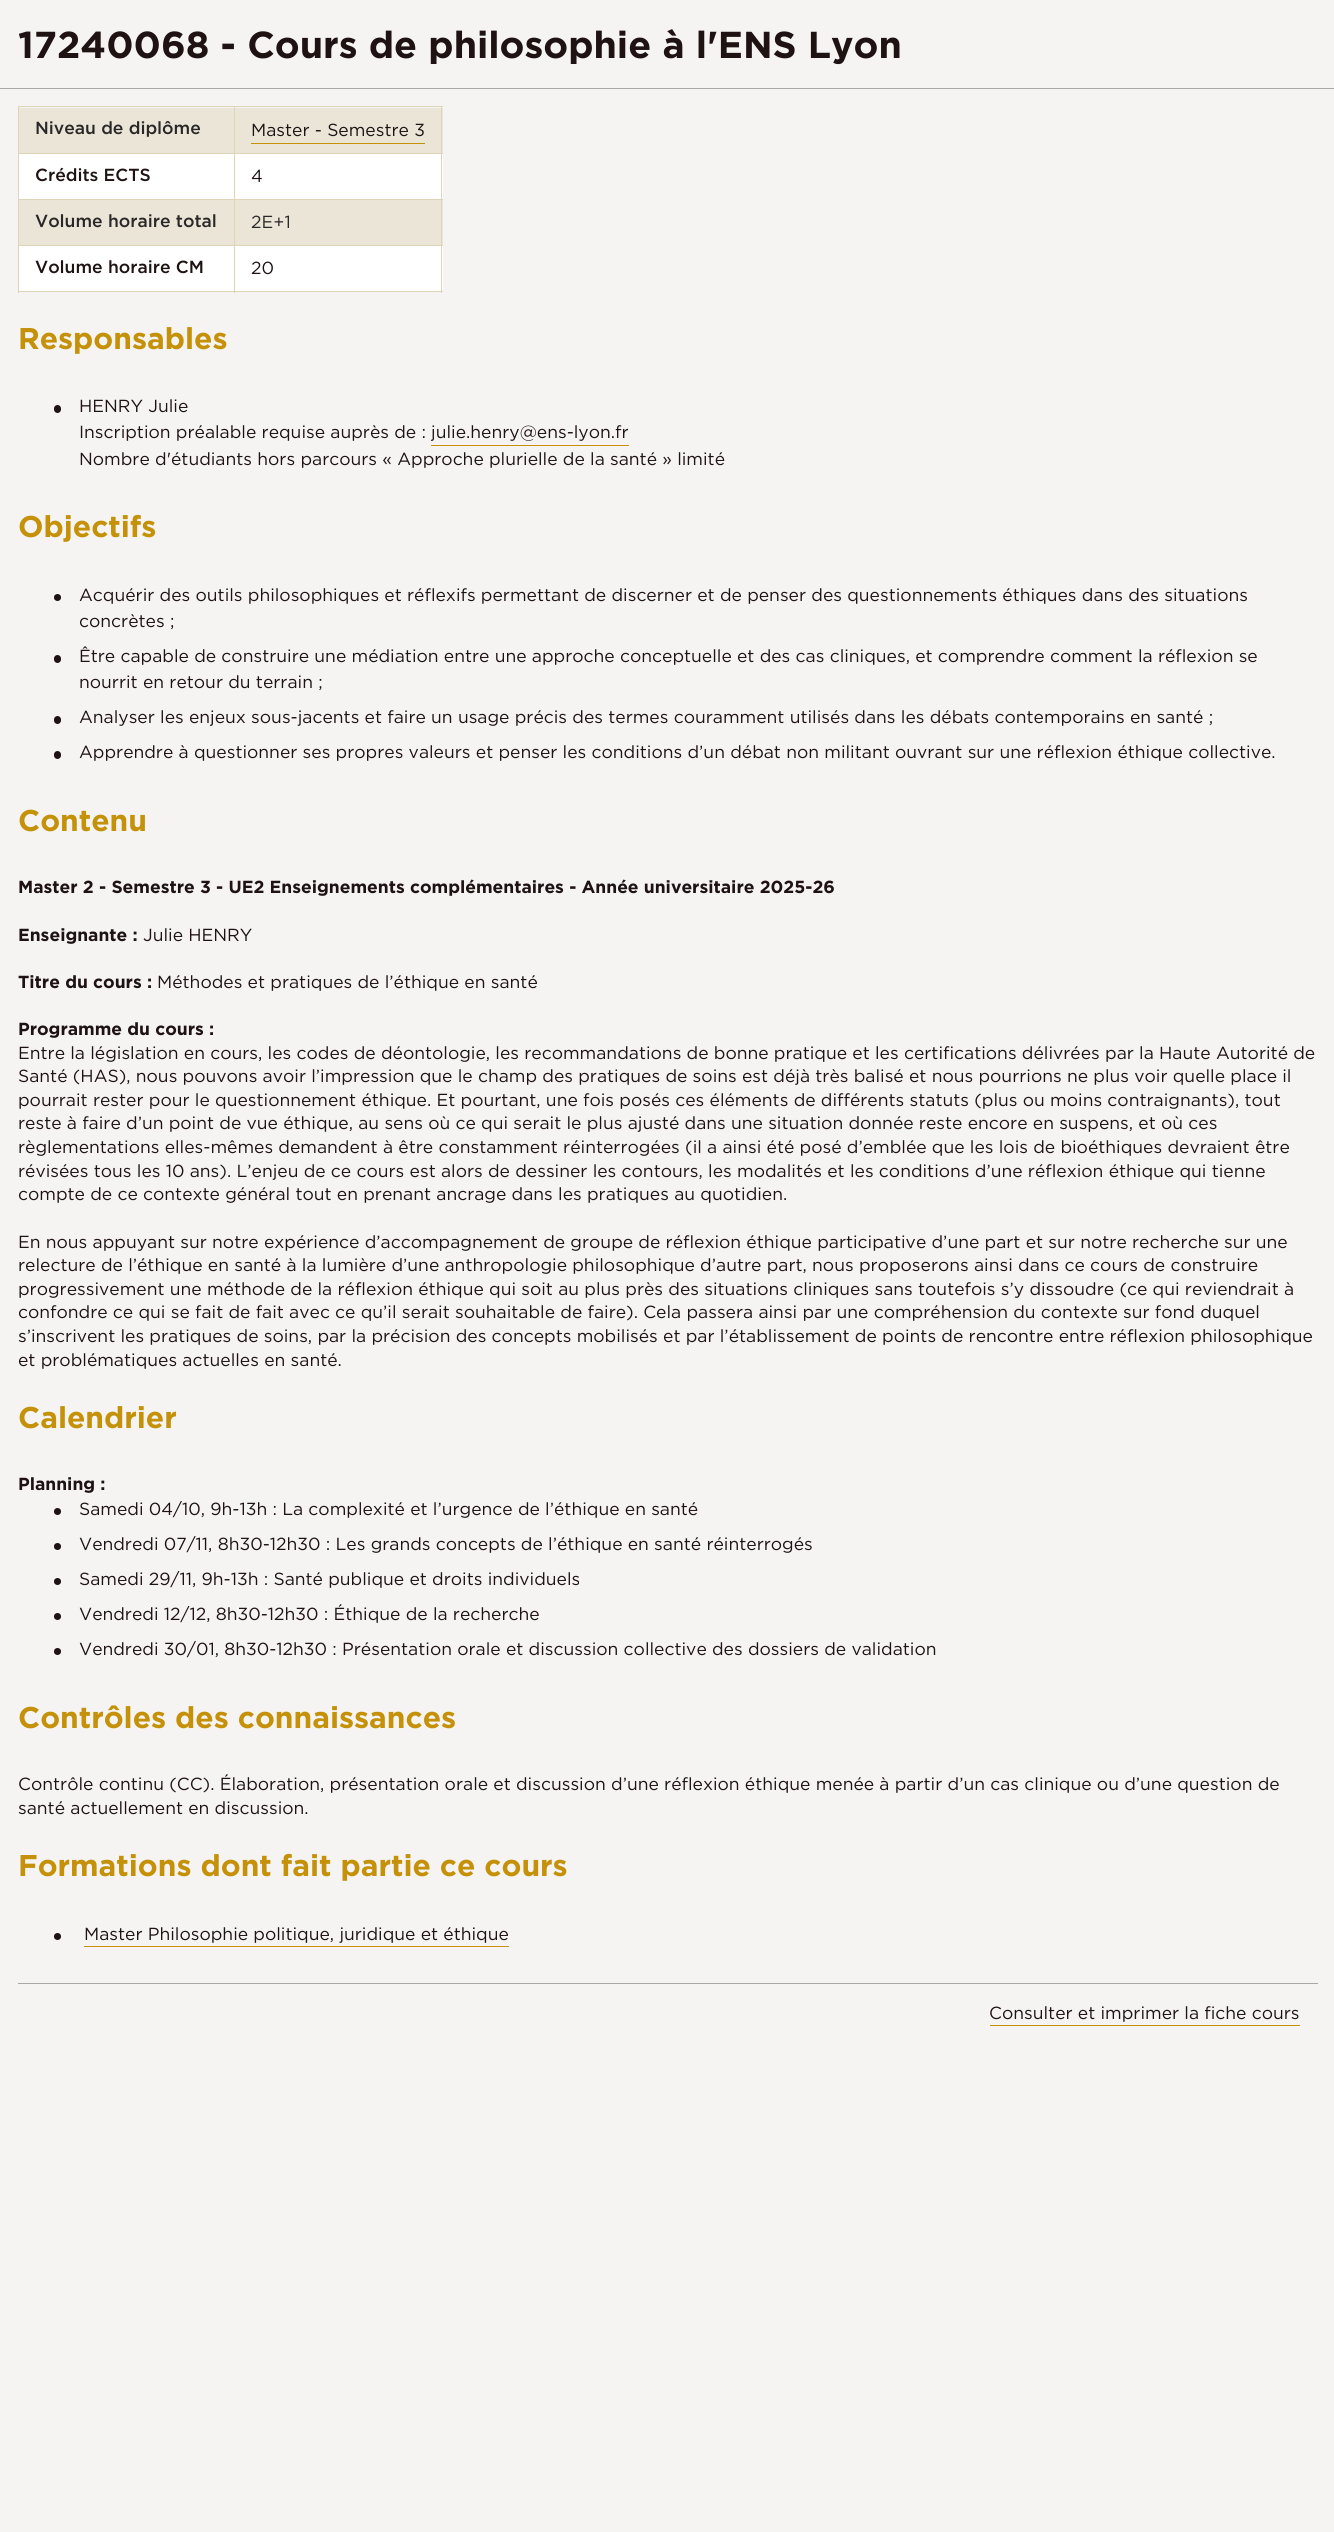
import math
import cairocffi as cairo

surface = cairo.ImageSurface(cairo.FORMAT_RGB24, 1334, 2532)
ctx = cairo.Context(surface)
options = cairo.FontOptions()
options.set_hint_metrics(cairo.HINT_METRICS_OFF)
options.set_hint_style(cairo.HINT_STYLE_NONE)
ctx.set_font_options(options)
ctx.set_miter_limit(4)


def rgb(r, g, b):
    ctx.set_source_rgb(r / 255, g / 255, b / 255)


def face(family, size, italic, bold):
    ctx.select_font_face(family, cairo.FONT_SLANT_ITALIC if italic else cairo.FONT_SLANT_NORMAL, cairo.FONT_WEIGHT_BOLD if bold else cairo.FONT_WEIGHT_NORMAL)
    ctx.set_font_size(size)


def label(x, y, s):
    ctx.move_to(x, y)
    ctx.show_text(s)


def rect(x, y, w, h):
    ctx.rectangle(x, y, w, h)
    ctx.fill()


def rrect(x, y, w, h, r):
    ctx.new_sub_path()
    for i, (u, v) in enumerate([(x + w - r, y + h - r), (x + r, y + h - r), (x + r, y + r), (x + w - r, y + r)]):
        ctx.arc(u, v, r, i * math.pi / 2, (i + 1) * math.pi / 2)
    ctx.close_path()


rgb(245, 244, 242)
ctx.paint()
rgb(172, 167, 167)
rect(0, 88, 1334, 1)
face('Gotham', 37.5, 0, 1)
rgb(30, 18, 19)
label(18, 58, '17240068 - Cours de philosophie à l\'ENS Lyon')
rgb(234, 229, 215)
rect(19, 108, 424, 45)
rgb(222, 212, 184)
rect(234, 106, 209, 1)
rect(234, 153, 209, 1)
rgb(255, 255, 255)
rect(19, 154, 424, 45)
rgb(222, 212, 184)
rect(234, 199, 209, 1)
rgb(234, 229, 215)
rect(19, 200, 424, 45)
rgb(222, 212, 184)
rect(234, 245, 209, 1)
rgb(255, 255, 255)
rect(19, 246, 424, 45)
rgb(222, 212, 184)
rect(441, 245, 1, 48)
rect(234, 291, 209, 1)
rect(234, 245, 1, 48)
rect(18, 245, 217, 1)
rect(234, 199, 1, 47)
rect(18, 199, 217, 1)
rect(234, 153, 1, 47)
rect(18, 153, 217, 1)
rect(234, 106, 1, 48)
rect(18, 106, 217, 1)
rect(18, 291, 217, 1)
rect(18, 245, 1, 48)
rect(18, 199, 1, 47)
rect(18, 153, 1, 47)
rect(18, 106, 1, 48)
face('Gotham Medium', 17.5, 0, 0)
rgb(41, 39, 39)
label(35, 134, 'Niveau de diplôme')
rgb(222, 212, 184)
rect(441, 199, 1, 47)
rect(441, 153, 1, 47)
rect(441, 106, 1, 48)
face('Gotham', 17.5, 0, 0)
rgb(30, 18, 19)
label(251, 136, 'Master - Semestre 3')
rgb(196, 145, 9)
rect(251, 143, 174, 1)
face('Gotham Medium', 17.5, 0, 0)
rgb(30, 18, 19)
label(35, 181, 'Crédits ECTS')
face('Gotham', 17.5, 0, 0)
label(251, 182, '4')
face('Gotham Medium', 17.5, 0, 0)
rgb(41, 39, 39)
label(35, 227, 'Volume horaire total')
face('Gotham', 17.5, 0, 0)
label(251, 228, '2E+1')
face('Gotham Medium', 17.5, 0, 0)
rgb(30, 18, 19)
label(35, 273, 'Volume horaire CM')
face('Gotham', 17.5, 0, 0)
label(251, 274, '20')
face('Gotham', 30, 0, 1)
rgb(196, 145, 9)
label(18, 349, 'Responsables')
rgb(30, 18, 19)
rrect(54, 405, 7, 8, 3.5)
ctx.fill()
face('Gotham', 17.5, 0, 0)
label(79, 412, 'HENRY Julie')
label(79, 438, 'Inscription préalable requise auprès de : julie.henry@ens-lyon.fr')
rgb(196, 145, 9)
rect(431, 445, 198, 1)
rgb(30, 18, 19)
label(79, 465, 'Nombre d\'étudiants hors parcours « Approche plurielle de la santé » limité')
face('Gotham', 30, 0, 1)
rgb(196, 145, 9)
label(18, 537, 'Objectifs')
rgb(30, 18, 19)
ctx.new_path()
ctx.arc(57.5, 597.5, 3.5, 0, 2 * math.pi)
ctx.fill()
face('Gotham', 17.5, 0, 0)
label(79, 601, 'Acquérir des outils philosophiques et réflexifs permettant de discerner et de penser des questionnements éthiques dans des situations')
label(79, 627, 'concrètes ;')
rrect(54, 655, 7, 8, 3.5)
ctx.fill()
label(79, 662, 'Être capable de construire une médiation entre une approche conceptuelle et des cas cliniques, et comprendre comment la réflexion se')
label(79, 688, 'nourrit en retour du terrain ;')
rrect(54, 716, 7, 8, 3.5)
ctx.fill()
label(79, 723, 'Analyser les enjeux sous-jacents et faire un usage précis des termes couramment utilisés dans les débats contemporains en santé ;')
rrect(54, 751, 7, 8, 3.5)
ctx.fill()
label(79, 758, 'Apprendre à questionner ses propres valeurs et penser les conditions d’un débat non militant ouvrant sur une réflexion éthique collective.')
face('Gotham', 30, 0, 1)
rgb(196, 145, 9)
label(18, 831, 'Contenu')
face('Gotham', 17.5, 0, 1)
rgb(30, 18, 19)
label(18, 893, 'Master 2 - Semestre 3 - UE2 Enseignements complémentaires - Année universitaire 2025-26')
label(18, 941, 'Enseignante :')
face('Gotham', 17.5, 0, 0)
label(143, 941, 'Julie HENRY')
face('Gotham', 17.5, 0, 1)
label(18, 988, 'Titre du cours :')
face('Gotham', 17.5, 0, 0)
label(157, 988, 'Méthodes et pratiques de l’éthique en santé')
face('Gotham', 17.5, 0, 1)
label(18, 1035, 'Programme du cours :')
face('Gotham', 17.5, 0, 0)
label(18, 1059, 'Entre la législation en cours, les codes de déontologie, les recommandations de bonne pratique et les certifications délivrées par la Haute Autorité de')
label(18, 1082, 'Santé (HAS), nous pouvons avoir l’impression que le champ des pratiques de soins est déjà très balisé et nous pourrions ne plus voir quelle place il')
label(18, 1106, 'pourrait rester pour le questionnement éthique. Et pourtant, une fois posés ces éléments de différents statuts (plus ou moins contraignants), tout')
label(18, 1129, 'reste à faire d’un point de vue éthique, au sens où ce qui serait le plus ajusté dans une situation donnée reste encore en suspens, et où ces')
label(18, 1153, 'règlementations elles-mêmes demandent à être constamment réinterrogées (il a ainsi été posé d’emblée que les lois de bioéthiques devraient être')
label(18, 1177, 'révisées tous les 10 ans). L’enjeu de ce cours est alors de dessiner les contours, les modalités et les conditions d’une réflexion éthique qui tienne')
label(18, 1200, 'compte de ce contexte général tout en prenant ancrage dans les pratiques au quotidien.')
label(18, 1248, 'En nous appuyant sur notre expérience d’accompagnement de groupe de réflexion éthique participative d’une part et sur notre recherche sur une')
label(18, 1271, 'relecture de l’éthique en santé à la lumière d’une anthropologie philosophique d’autre part, nous proposerons ainsi dans ce cours de construire')
label(18, 1295, 'progressivement une méthode de la réflexion éthique qui soit au plus près des situations cliniques sans toutefois s’y dissoudre (ce qui reviendrait à')
label(18, 1318, 'confondre ce qui se fait de fait avec ce qu’il serait souhaitable de faire). Cela passera ainsi par une compréhension du contexte sur fond duquel')
label(18, 1342, 's’inscrivent les pratiques de soins, par la précision des concepts mobilisés et par l’établissement de points de rencontre entre réflexion philosophique')
label(18, 1366, 'et problématiques actuelles en santé.')
face('Gotham', 30, 0, 1)
rgb(196, 145, 9)
label(18, 1428, 'Calendrier')
face('Gotham', 17.5, 0, 1)
rgb(30, 18, 19)
label(18, 1490, 'Planning :')
ctx.new_path()
ctx.arc(57.5, 1511.5, 3.5, 0, 2 * math.pi)
ctx.fill()
face('Gotham', 17.5, 0, 0)
label(79, 1515, 'Samedi 04/10, 9h-13h : La complexité et l’urgence de l’éthique en santé')
ctx.new_path()
ctx.arc(57.5, 1546.5, 3.5, 0, 2 * math.pi)
ctx.fill()
label(79, 1550, 'Vendredi 07/11, 8h30-12h30 : Les grands concepts de l’éthique en santé réinterrogés')
ctx.new_path()
ctx.arc(57.5, 1581.5, 3.5, 0, 2 * math.pi)
ctx.fill()
label(79, 1585, 'Samedi 29/11, 9h-13h : Santé publique et droits individuels')
ctx.new_path()
ctx.arc(57.5, 1616.5, 3.5, 0, 2 * math.pi)
ctx.fill()
label(79, 1620, 'Vendredi 12/12, 8h30-12h30 : Éthique de la recherche')
ctx.new_path()
ctx.arc(57.5, 1651.5, 3.5, 0, 2 * math.pi)
ctx.fill()
label(79, 1655, 'Vendredi 30/01, 8h30-12h30 : Présentation orale et discussion collective des dossiers de validation')
face('Gotham', 30, 0, 1)
rgb(196, 145, 9)
label(18, 1728, 'Contrôles des connaissances')
face('Gotham', 17.5, 0, 0)
rgb(30, 18, 19)
label(18, 1790, 'Contrôle continu (CC). Élaboration, présentation orale et discussion d’une réflexion éthique menée à partir d’un cas clinique ou d’une question de')
label(18, 1814, 'santé actuellement en discussion.')
face('Gotham', 30, 0, 1)
rgb(196, 145, 9)
label(18, 1876, 'Formations dont fait partie ce cours')
rgb(30, 18, 19)
ctx.new_path()
ctx.arc(57.5, 1936.5, 3.5, 0, 2 * math.pi)
ctx.fill()
face('Gotham', 17.5, 0, 0)
label(84, 1940, 'Master Philosophie politique, juridique et éthique')
rgb(196, 145, 9)
rect(84, 1946, 425, 1)
rgb(172, 167, 167)
rect(18, 1983, 1300, 1)
rgb(30, 18, 19)
label(989, 2019, 'Consulter et imprimer la fiche cours')
rgb(196, 145, 9)
rect(990, 2025, 310, 1)
surface.write_to_png('render.png')
